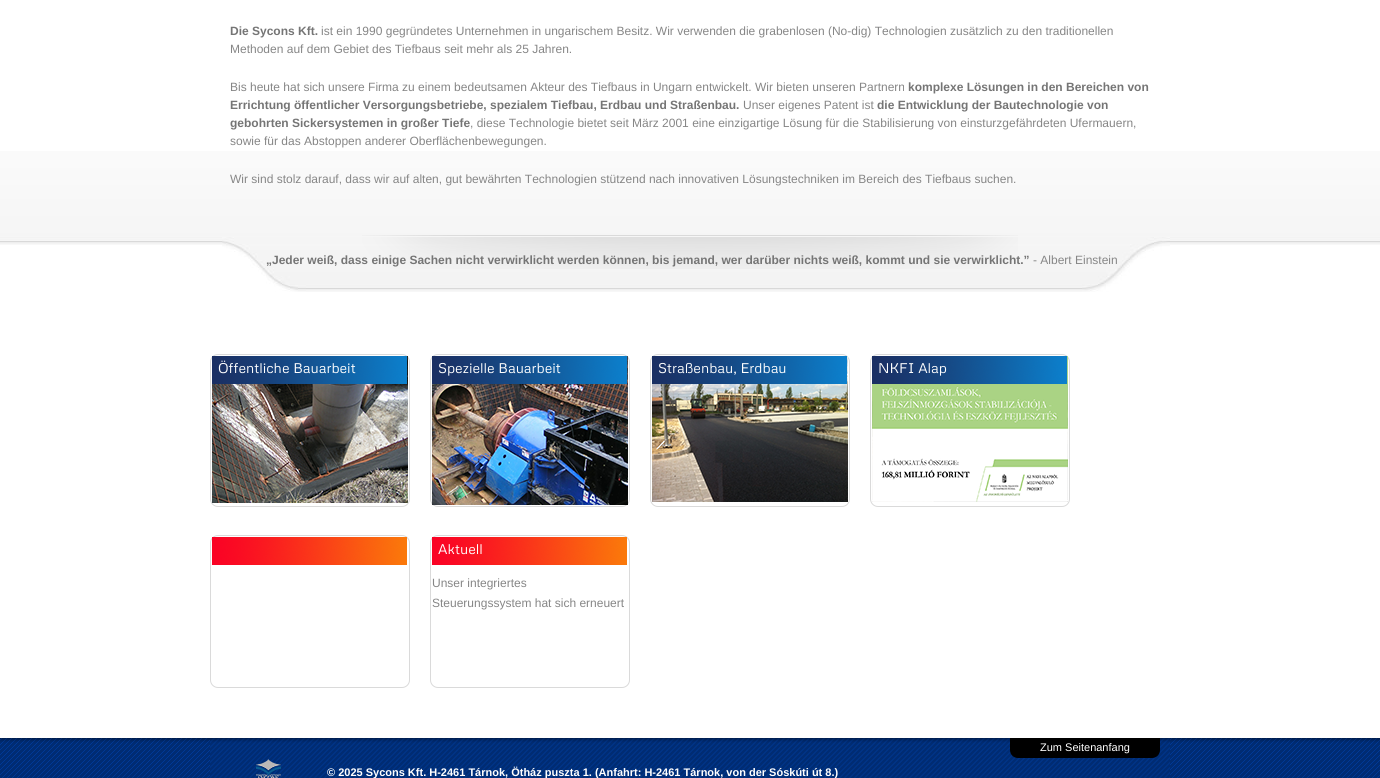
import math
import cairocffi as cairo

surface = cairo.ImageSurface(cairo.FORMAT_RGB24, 1380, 778)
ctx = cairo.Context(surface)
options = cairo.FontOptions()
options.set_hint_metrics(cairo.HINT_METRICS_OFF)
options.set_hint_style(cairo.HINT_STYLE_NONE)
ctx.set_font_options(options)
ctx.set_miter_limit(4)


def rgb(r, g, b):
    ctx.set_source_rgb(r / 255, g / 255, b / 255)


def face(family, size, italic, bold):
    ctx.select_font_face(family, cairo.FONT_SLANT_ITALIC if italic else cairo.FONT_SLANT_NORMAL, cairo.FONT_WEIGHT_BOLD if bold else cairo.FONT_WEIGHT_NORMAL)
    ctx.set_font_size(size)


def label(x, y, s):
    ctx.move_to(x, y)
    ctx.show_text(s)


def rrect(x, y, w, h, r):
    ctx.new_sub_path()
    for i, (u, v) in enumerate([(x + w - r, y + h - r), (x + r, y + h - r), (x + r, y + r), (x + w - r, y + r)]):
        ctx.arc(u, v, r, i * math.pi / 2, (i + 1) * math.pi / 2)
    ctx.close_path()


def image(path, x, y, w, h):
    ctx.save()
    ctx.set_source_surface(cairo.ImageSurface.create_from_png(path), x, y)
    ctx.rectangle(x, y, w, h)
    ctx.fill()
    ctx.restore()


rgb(255, 255, 255)
ctx.paint()
image('image0.png', 0, 151, 1380, 94)
image('image1.png', 222, 237, 948, 55)
face('Liberation Sans', 12, 0, 1)
rgb(117, 117, 117)
label(230, 35, 'Die Sycons Kft.')
face('Liberation Sans', 12, 0, 0)
rgb(134, 134, 134)
label(321, 35, 'ist ein 1990 gegründetes Unternehmen in ungarischem Besitz. Wir verwenden die grabenlosen (No-dig) Technologien zusätzlich zu den traditionellen')
label(230, 53, 'Methoden auf dem Gebiet des Tiefbaus seit mehr als 25 Jahren.')
label(230, 91, 'Bis heute hat sich unsere Firma zu einem bedeutsamen Akteur des Tiefbaus in Ungarn entwickelt. Wir bieten unseren Partnern')
face('Liberation Sans', 12, 0, 1)
rgb(117, 117, 117)
label(908, 91, 'komplexe Lösungen in den Bereichen von')
label(230, 109, 'Errichtung öffentlicher Versorgungsbetriebe, spezialem Tiefbau, Erdbau und Straßenbau.')
face('Liberation Sans', 12, 0, 0)
rgb(134, 134, 134)
label(743, 109, 'Unser eigenes Patent ist')
face('Liberation Sans', 12, 0, 1)
rgb(117, 117, 117)
label(877, 109, 'die Entwicklung der Bautechnologie von')
label(230, 127, 'gebohrten Sickersystemen in großer Tiefe')
face('Liberation Sans', 12, 0, 0)
rgb(134, 134, 134)
label(470, 127, ', diese Technologie bietet seit März 2001 eine einzigartige Lösung für die Stabilisierung von einsturzgefährdeten Ufermauern,')
label(230, 145, 'sowie für das Abstoppen anderer Oberflächenbewegungen.')
label(230, 183, 'Wir sind stolz darauf, dass wir auf alten, gut bewährten Technologien stützend nach innovativen Lösungstechniken im Bereich des Tiefbaus suchen.')
image('image2.png', 362, 235, 656, 34)
face('Liberation Sans', 12, 0, 1)
rgb(117, 117, 117)
label(266, 264, '„Jeder weiß, dass einige Sachen nicht verwirklicht werden können, bis jemand, wer darüber nichts weiß, kommt und sie verwirklicht.”')
face('Liberation Sans', 12, 0, 0)
rgb(134, 134, 134)
label(1033, 264, '- Albert Einstein')
rrect(210.5, 354.5, 199, 152, 7.5)
rgb(218, 218, 218)
ctx.set_line_width(1)
ctx.stroke()
image('image3.png', 212, 356, 196, 147)
image('image4.png', 212, 356, 195, 28)
face('Metrophobic', 14, 0, 0)
rgb(255, 255, 255)
label(218, 373, 'Öffentliche Bauarbeit')
rrect(430.5, 354.5, 199, 152, 7.5)
rgb(218, 218, 218)
ctx.stroke()
image('image5.png', 432, 356, 196, 149)
image('image4.png', 432, 356, 195, 28)
rgb(255, 255, 255)
label(438, 373, 'Spezielle Bauarbeit')
rrect(650.5, 354.5, 199, 152, 7.5)
rgb(218, 218, 218)
ctx.stroke()
image('image6.png', 652, 356, 196, 146)
image('image4.png', 652, 356, 195, 28)
rgb(255, 255, 255)
label(658, 373, 'Straßenbau, Erdbau')
rrect(870.5, 354.5, 199, 152, 7.5)
rgb(218, 218, 218)
ctx.stroke()
image('image7.png', 872, 356, 196, 146)
image('image4.png', 872, 356, 195, 28)
rgb(255, 255, 255)
label(878, 373, 'NKFI Alap')
rrect(210.5, 535.5, 199, 152, 7.5)
rgb(218, 218, 218)
ctx.stroke()
image('image8.png', 212, 537, 195, 28)
rrect(430.5, 535.5, 199, 152, 7.5)
ctx.stroke()
image('image8.png', 432, 537, 195, 28)
rgb(255, 255, 255)
label(438, 554, 'Aktuell')
face('Liberation Sans', 12, 0, 0)
rgb(134, 134, 134)
label(432, 587, 'Unser integriertes')
label(432, 607, 'Steuerungssystem hat sich erneuert')
image('image9.png', 0, 738, 1380, 40)
image('image10.png', 210, 738, 960, 40)
rgb(0, 0, 0)
ctx.new_path()
ctx.move_to(1010, 738)
ctx.line_to(1160, 738)
ctx.line_to(1160, 750)
ctx.curve_to(1160, 754.5, 1156.5, 758, 1152, 758)
ctx.line_to(1018, 758)
ctx.curve_to(1013.5, 758, 1010, 754.5, 1010, 750)
ctx.close_path()
ctx.fill()
face('Liberation Sans', 11, 0, 0)
rgb(255, 255, 255)
label(1040, 751, 'Zum Seitenanfang')
image('image11.png', 256, 759, 25, 19)
face('Liberation Sans', 11, 0, 1)
label(327, 776, '© 2025 Sycons Kft. H-2461 Tárnok, Ötház puszta 1. (Anfahrt: H-2461 Tárnok, von der Sóskúti út 8.)')
surface.write_to_png('render.png')
